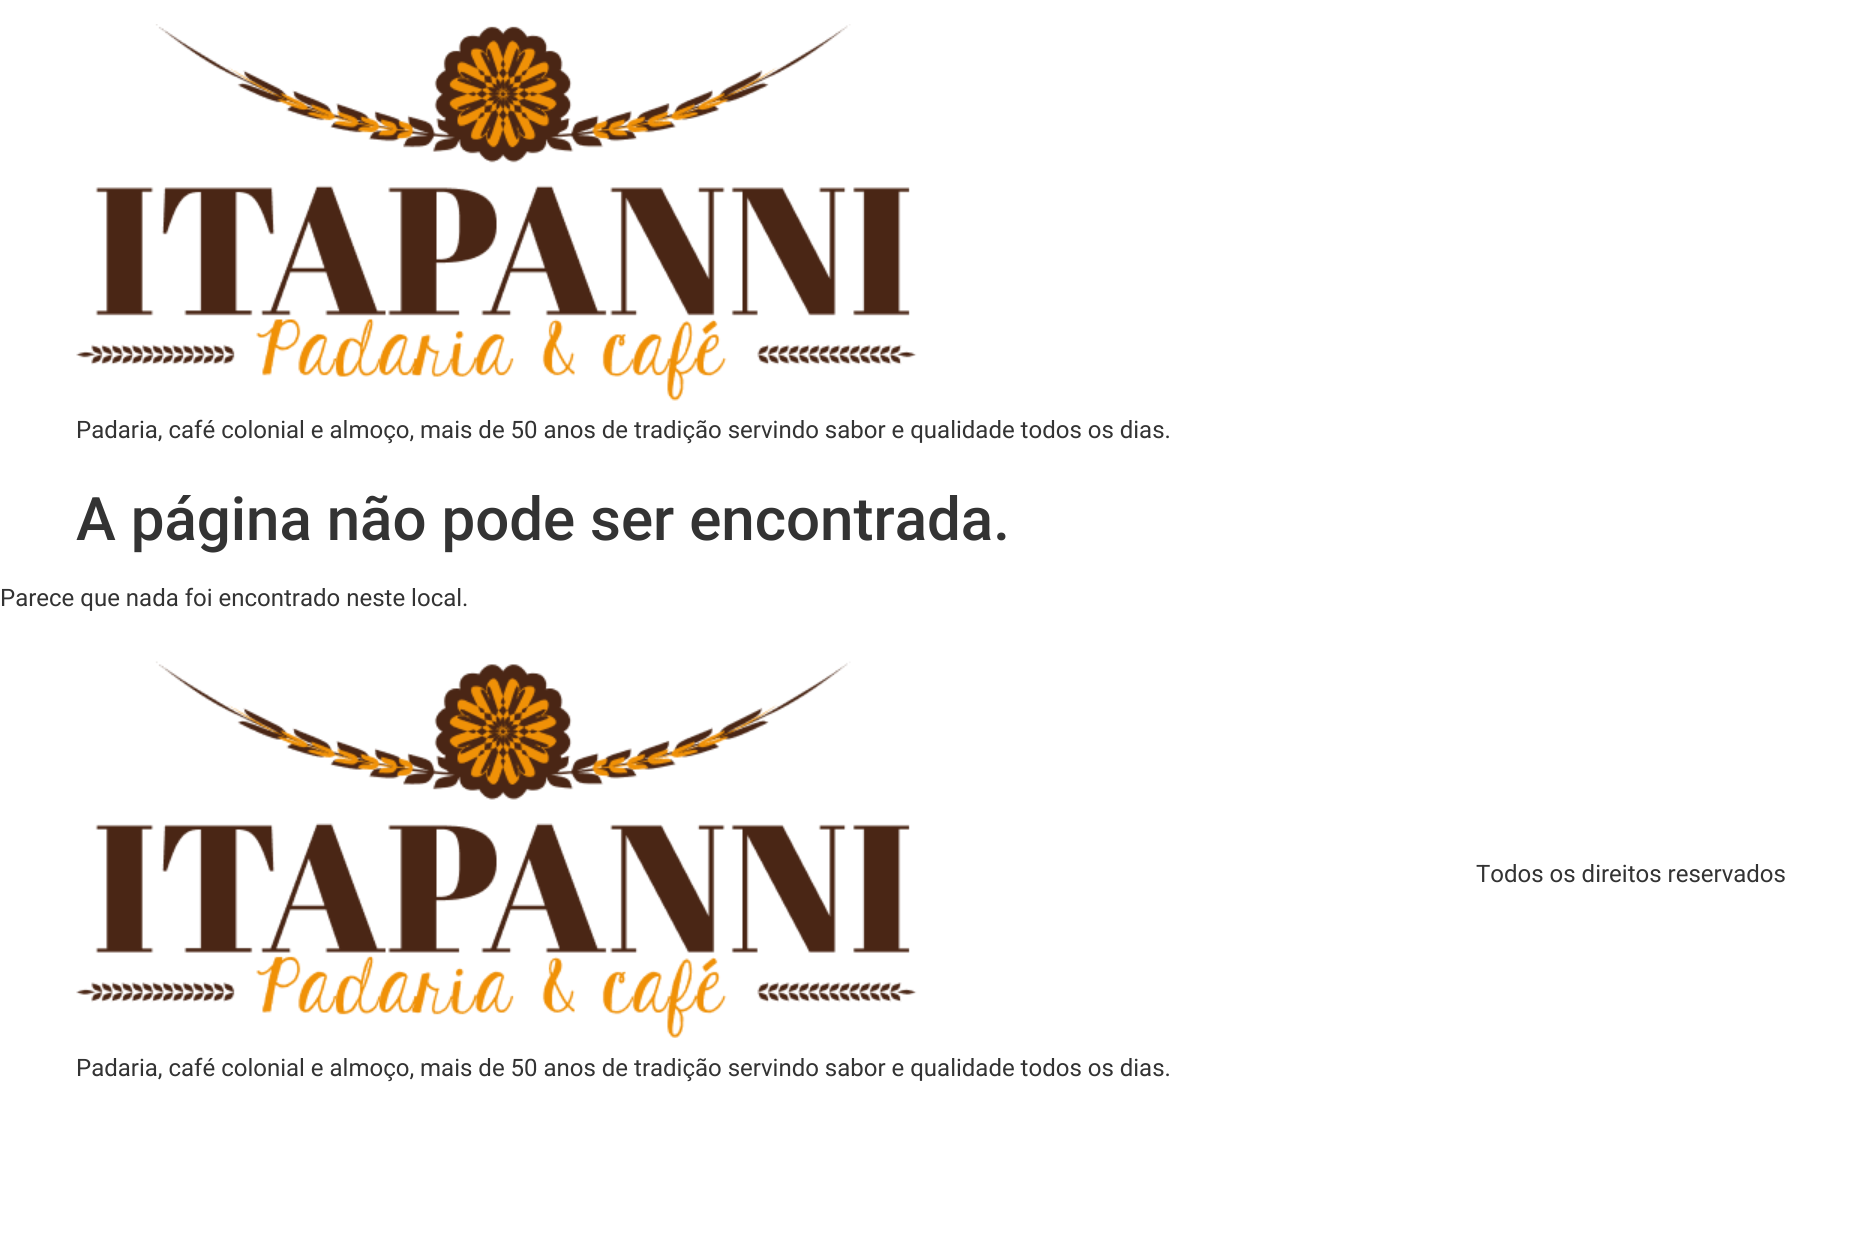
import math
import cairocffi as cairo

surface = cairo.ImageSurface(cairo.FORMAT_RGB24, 1861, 1252)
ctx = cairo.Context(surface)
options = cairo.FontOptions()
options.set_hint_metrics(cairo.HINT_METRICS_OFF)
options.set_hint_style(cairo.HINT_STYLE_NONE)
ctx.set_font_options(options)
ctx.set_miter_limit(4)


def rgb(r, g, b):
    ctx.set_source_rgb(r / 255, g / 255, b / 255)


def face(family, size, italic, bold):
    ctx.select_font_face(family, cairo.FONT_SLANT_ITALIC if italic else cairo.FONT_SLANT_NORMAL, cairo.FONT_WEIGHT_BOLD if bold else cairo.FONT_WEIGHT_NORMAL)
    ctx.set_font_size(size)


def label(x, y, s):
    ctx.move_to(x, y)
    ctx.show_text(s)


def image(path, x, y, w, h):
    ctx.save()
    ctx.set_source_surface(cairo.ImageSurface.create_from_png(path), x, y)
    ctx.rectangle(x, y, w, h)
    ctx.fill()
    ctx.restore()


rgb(255, 255, 255)
ctx.paint()
image('image0.png', 76, 24, 841, 377)
face('Roboto', 24, 0, 0)
rgb(51, 51, 51)
label(76, 438, 'Padaria, café colonial e almoço, mais de 50 anos de tradição servindo sabor e qualidade todos os dias.')
face('Roboto Medium', 60, 0, 0)
label(76, 540, 'A página não pode ser encontrada.')
face('Roboto', 24, 0, 0)
label(0, 606, 'Parece que nada foi encontrado neste local.')
label(1476, 882, 'Todos os direitos reservados')
image('image1.png', 76, 661, 841, 377)
label(76, 1076, 'Padaria, café colonial e almoço, mais de 50 anos de tradição servindo sabor e qualidade todos os dias.')
surface.write_to_png('render.png')
